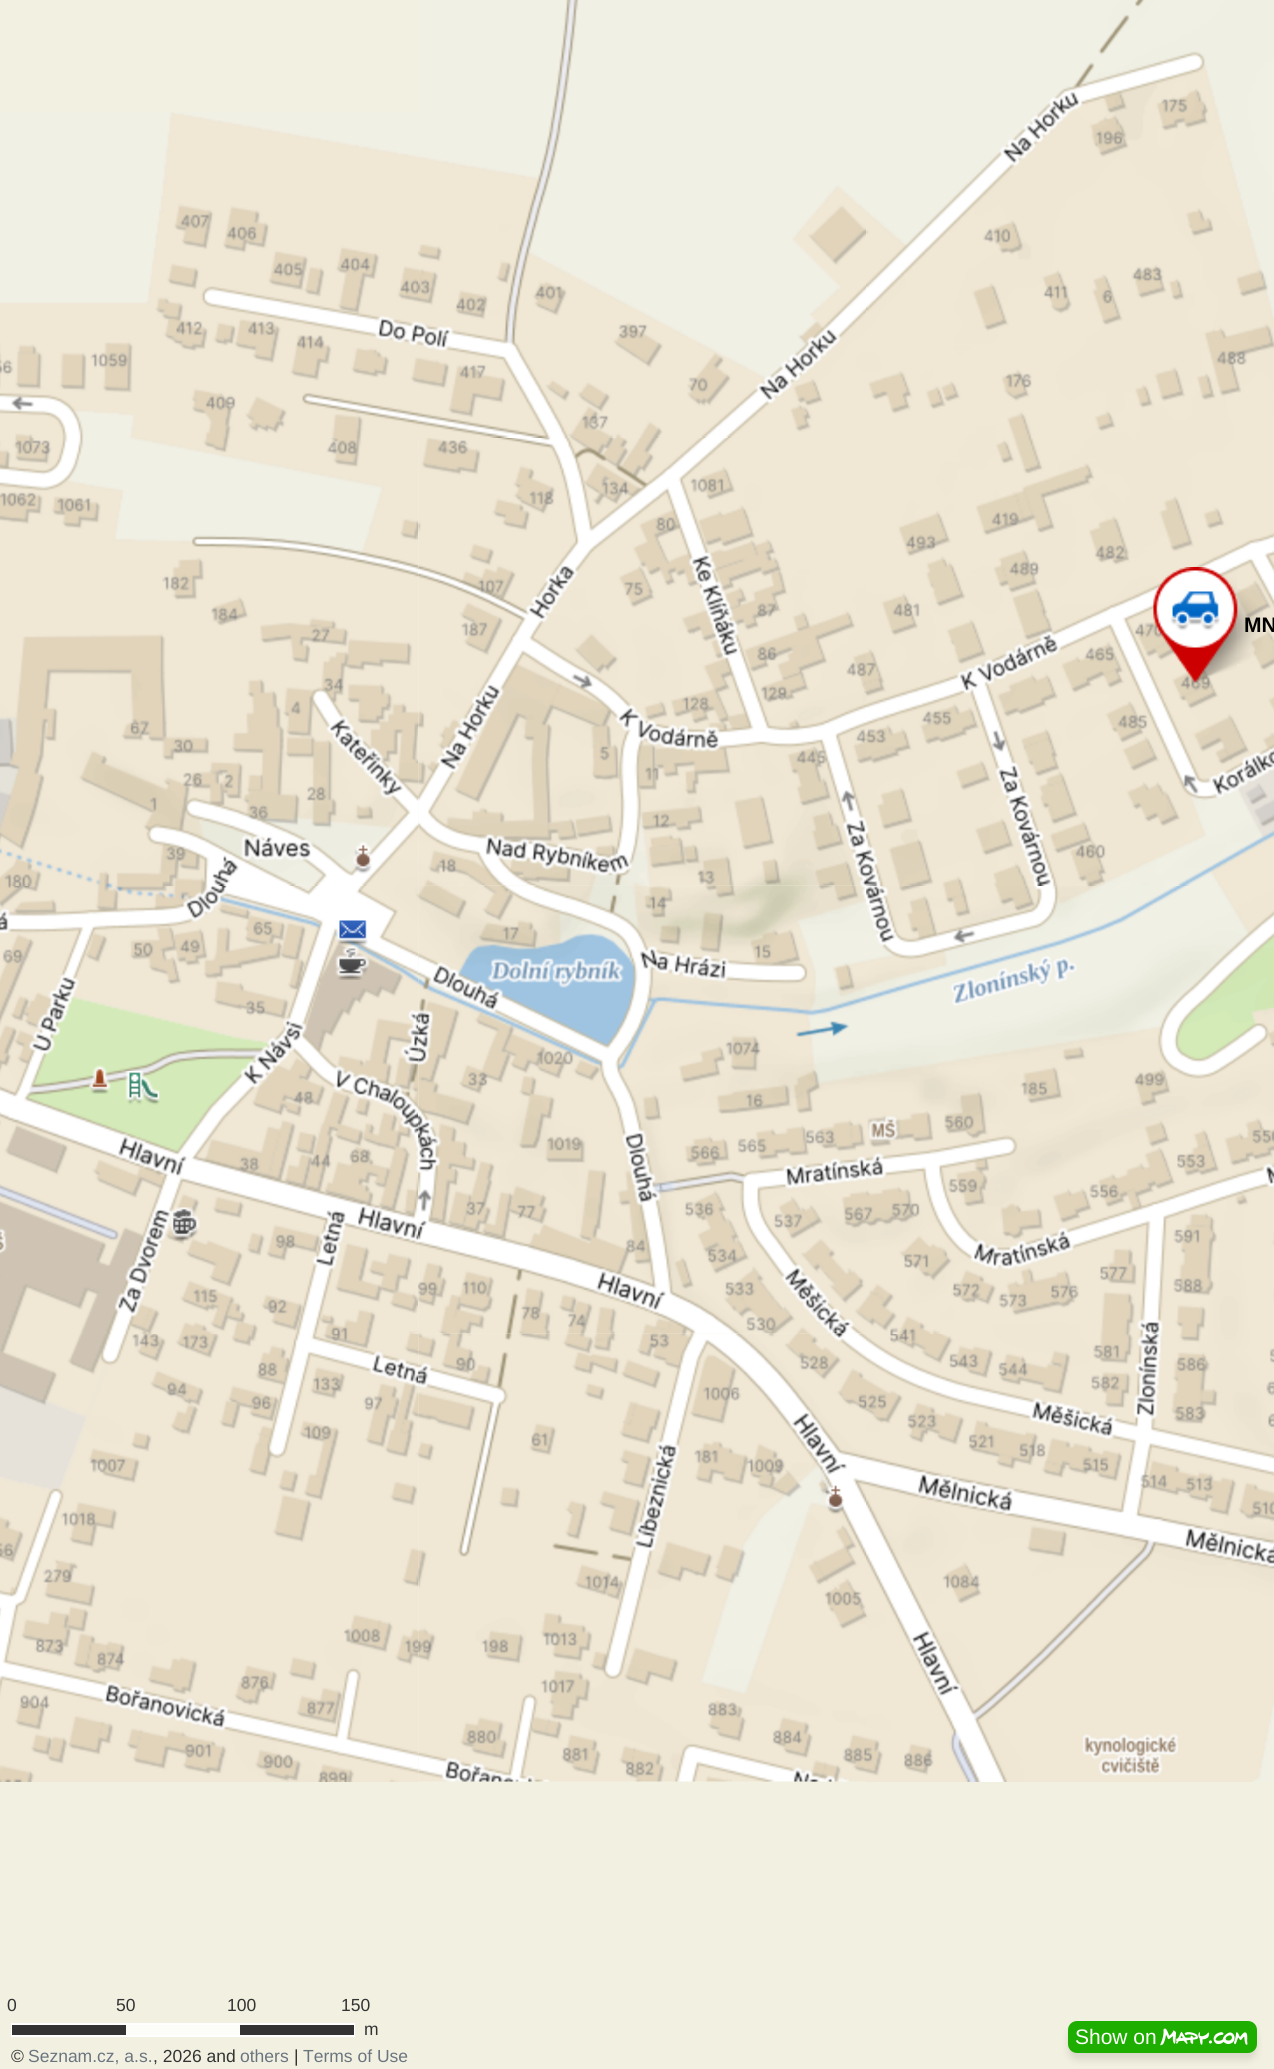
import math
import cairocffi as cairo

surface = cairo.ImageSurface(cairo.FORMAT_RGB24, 1274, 2069)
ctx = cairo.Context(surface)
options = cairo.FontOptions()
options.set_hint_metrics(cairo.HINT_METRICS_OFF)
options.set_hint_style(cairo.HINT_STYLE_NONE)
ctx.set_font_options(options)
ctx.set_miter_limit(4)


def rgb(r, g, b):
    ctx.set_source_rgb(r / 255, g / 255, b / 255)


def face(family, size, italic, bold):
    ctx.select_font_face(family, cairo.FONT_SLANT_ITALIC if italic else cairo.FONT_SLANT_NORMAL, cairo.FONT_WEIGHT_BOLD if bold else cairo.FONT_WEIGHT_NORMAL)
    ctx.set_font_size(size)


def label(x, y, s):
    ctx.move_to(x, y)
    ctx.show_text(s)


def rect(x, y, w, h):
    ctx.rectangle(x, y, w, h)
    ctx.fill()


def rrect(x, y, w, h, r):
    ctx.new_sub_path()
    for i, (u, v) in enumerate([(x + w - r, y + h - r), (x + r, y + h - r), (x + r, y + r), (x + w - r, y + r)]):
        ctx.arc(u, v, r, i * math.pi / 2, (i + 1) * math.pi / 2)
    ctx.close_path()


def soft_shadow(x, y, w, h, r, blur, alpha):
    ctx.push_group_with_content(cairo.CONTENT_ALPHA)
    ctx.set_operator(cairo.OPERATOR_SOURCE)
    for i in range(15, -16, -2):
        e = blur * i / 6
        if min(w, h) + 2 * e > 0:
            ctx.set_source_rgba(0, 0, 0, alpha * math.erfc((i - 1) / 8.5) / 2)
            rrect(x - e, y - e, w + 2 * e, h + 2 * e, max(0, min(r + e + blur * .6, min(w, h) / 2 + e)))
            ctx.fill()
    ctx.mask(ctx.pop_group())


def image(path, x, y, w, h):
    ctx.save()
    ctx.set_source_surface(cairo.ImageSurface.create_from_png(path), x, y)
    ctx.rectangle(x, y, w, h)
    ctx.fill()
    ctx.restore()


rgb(242, 241, 225)
ctx.paint()
image('image0.png', 0, 112, 418, 326)
image('image1.png', 418, 0, 448, 438)
image('image2.png', 866, 0, 408, 438)
image('image3.png', 0, 438, 418, 448)
image('image5.png', 866, 438, 408, 448)
image('image4.png', 418, 438, 449, 448)
image('image6.png', 0, 886, 418, 448)
image('image8.png', 866, 886, 408, 448)
image('image7.png', 418, 885, 449, 449)
image('image9.png', 0, 1334, 418, 448)
image('image11.png', 866, 1334, 408, 448)
image('image10.png', 418, 1333, 449, 449)
image('image13.png', 1237, 589, 26, 75)
image('image12.png', 1153, 567, 85, 116)
image('image14.png', 1170, 591, 50, 40)
face('Liberation Sans', 21, 0, 1)
rgb(0, 0, 0)
label(1244, 632, 'MN')
image('image15.png', 353, 841, 19, 33)
image('image16.png', 335, 920, 33, 26)
image('image17.png', 335, 945, 35, 35)
image('image18.png', 89, 1065, 22, 29)
image('image19.png', 125, 1071, 35, 34)
image('image20.png', 169, 1207, 31, 34)
image('image21.png', 825, 1484, 19, 30)
face('Liberation Sans', 17.5, 0, 0)
rgb(51, 51, 51)
label(7, 2011, '0')
label(116, 2011, '50')
label(227, 2011, '100')
label(341, 2011, '150')
ctx.rectangle(12, 2024, 342, 12)
rgb(255, 255, 255)
ctx.stroke()
rgb(51, 51, 51)
rect(12, 2025, 114, 10)
rgb(252, 252, 249)
rect(126, 2025, 114, 10)
rgb(51, 51, 51)
rect(240, 2025, 114, 10)
label(364, 2035, 'm')
label(11, 2062, '©')
rgb(107, 117, 128)
label(28, 2062, 'Seznam.cz, a.s.')
rgb(51, 51, 51)
label(153, 2062, ', 2026 and')
rgb(107, 117, 128)
label(240, 2062, 'others')
rgb(51, 51, 51)
label(294, 2062, '|')
rgb(107, 117, 128)
label(303, 2062, 'Terms of Use')
rgb(0, 0, 0)
soft_shadow(1068, 2028, 189, 32, 9, 3.5, 0.1)
rgb(30, 174, 0)
rrect(1068, 2021, 189, 32, 9)
ctx.fill()
face('Liberation Sans', 21, 0, 0)
rgb(255, 255, 255)
label(1075, 2044, 'Show on')
image('image22.png', 1160, 2028, 88, 18)
surface.write_to_png('render.png')
